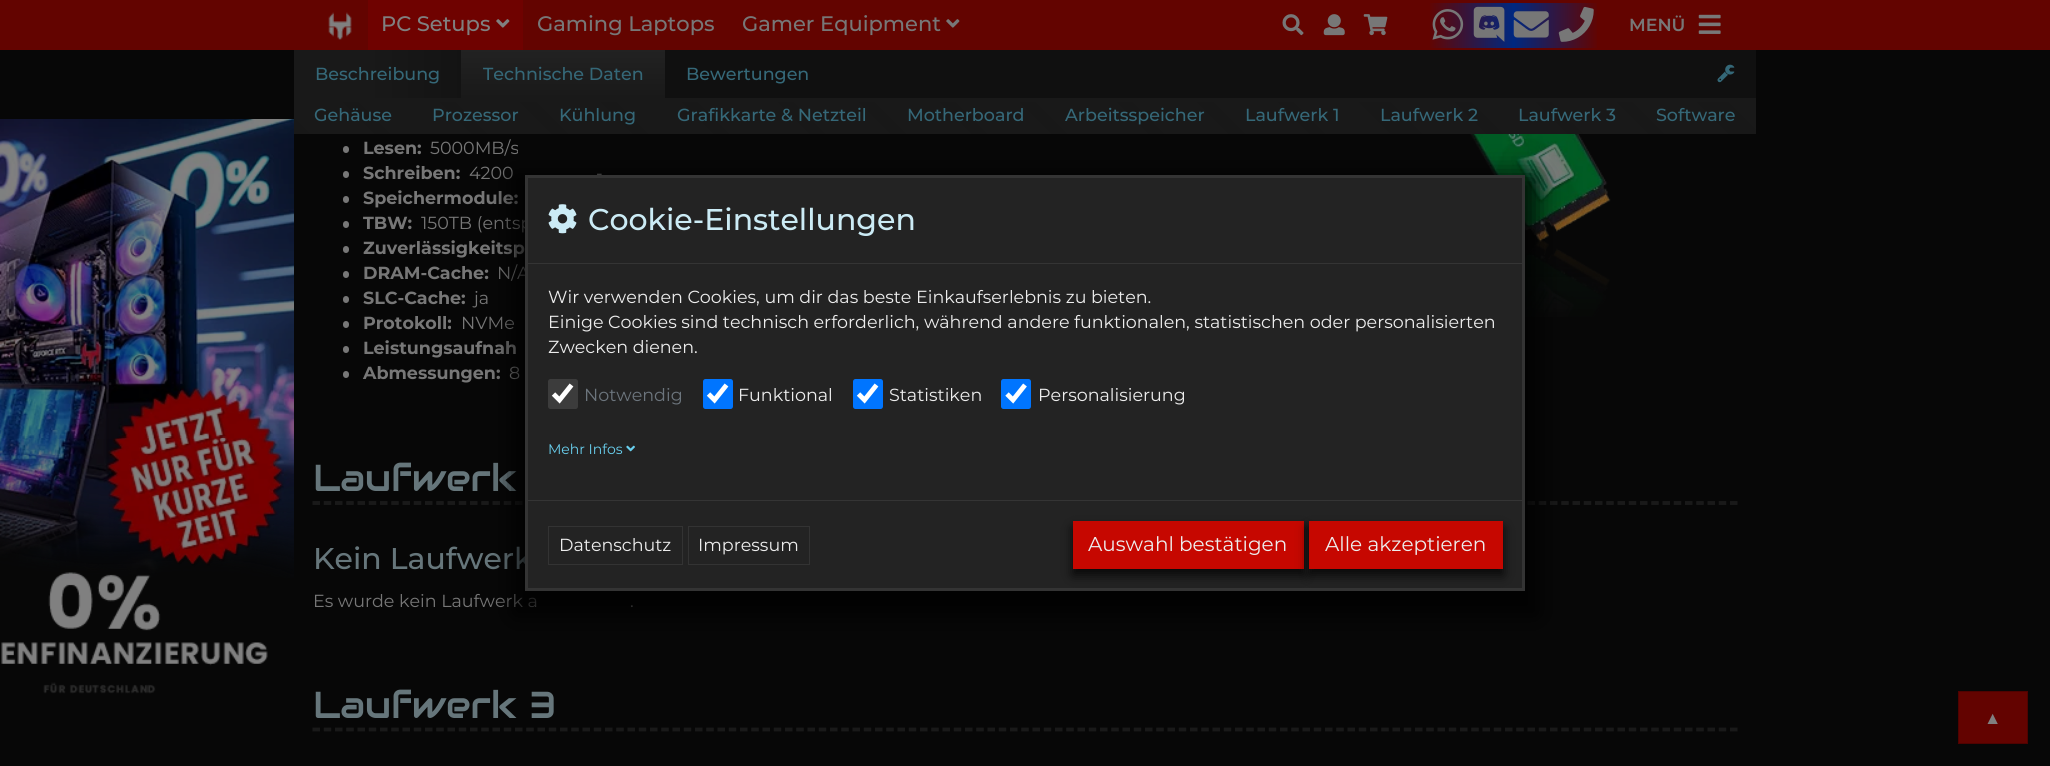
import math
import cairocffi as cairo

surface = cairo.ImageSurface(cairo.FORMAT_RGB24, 2050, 766)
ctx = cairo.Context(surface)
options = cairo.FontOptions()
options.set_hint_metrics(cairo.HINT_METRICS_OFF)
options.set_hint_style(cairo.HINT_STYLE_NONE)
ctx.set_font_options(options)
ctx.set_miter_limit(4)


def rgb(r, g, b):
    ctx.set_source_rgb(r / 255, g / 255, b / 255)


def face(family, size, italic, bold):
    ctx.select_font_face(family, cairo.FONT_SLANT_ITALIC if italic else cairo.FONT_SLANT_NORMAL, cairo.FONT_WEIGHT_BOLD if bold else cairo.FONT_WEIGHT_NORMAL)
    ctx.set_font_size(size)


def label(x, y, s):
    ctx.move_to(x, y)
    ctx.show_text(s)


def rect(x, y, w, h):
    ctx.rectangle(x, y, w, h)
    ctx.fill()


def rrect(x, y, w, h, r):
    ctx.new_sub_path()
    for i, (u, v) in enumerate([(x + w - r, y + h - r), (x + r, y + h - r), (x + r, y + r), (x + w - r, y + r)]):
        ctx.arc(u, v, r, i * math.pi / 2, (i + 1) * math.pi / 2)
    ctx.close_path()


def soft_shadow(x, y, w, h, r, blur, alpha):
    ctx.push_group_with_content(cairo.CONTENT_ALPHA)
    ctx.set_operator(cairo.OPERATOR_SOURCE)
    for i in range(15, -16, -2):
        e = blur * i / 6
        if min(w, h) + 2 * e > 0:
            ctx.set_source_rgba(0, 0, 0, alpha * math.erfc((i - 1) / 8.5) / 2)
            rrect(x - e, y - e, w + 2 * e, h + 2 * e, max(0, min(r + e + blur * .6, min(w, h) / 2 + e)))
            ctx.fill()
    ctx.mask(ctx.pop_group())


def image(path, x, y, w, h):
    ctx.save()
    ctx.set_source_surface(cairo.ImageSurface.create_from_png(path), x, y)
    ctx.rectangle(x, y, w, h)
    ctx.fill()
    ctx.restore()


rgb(7, 7, 7)
ctx.paint()
rgb(99, 4, 0)
rect(0, 0, 2050, 50)
image('image0.png', 328, 12, 24, 28)
rgb(111, 2, 0)
rect(368, 0, 155, 50)
face('Montserrat Medium', 21, 0, 0)
rgb(128, 128, 128)
label(381, 31, 'PC Setups')
image('image1.png', 496, 19, 14, 9)
rgb(119, 119, 119)
label(537, 31, 'Gaming Laptops')
label(742, 31, 'Gamer Equipment')
image('image2.png', 946, 19, 14, 9)
image('image3.png', 1282, 14, 22, 22)
image('image4.png', 1323, 14, 22, 22)
image('image5.png', 1363, 14, 25, 22)
gradient = cairo.LinearGradient(1428, 25, 1599, 25)
gradient.add_color_stop_rgba(0, 0.388, 0.016, 0, 1)
gradient.add_color_stop_rgba(0.5, 0, 0.157, 0.502, 1)
gradient.add_color_stop_rgba(1, 0.388, 0.016, 0, 1)
ctx.set_source(gradient)
rect(1430, 3, 167, 45)
image('image6.png', 1432, 9, 32, 31)
image('image7.png', 1473, 6, 32, 36)
image('image8.png', 1513, 11, 36, 27)
image('image9.png', 1558, 6, 36, 36)
face('Montserrat SemiBold', 17.5, 0, 0)
rgb(119, 119, 119)
label(1629, 31, 'MENÜ')
image('image10.png', 1698, 14, 23, 20)
image('image11.png', 0, 119, 294, 575)
gradient = cairo.LinearGradient(294, 74, 1756, 74)
gradient.add_color_stop_rgba(0.05, 0.098, 0.098, 0.098, 1)
gradient.add_color_stop_rgba(0.15, 0.063, 0.063, 0.063, 1)
ctx.set_source(gradient)
rect(294, 50, 1462, 48)
rgb(25, 25, 25)
rect(294, 98, 1462, 4)
face('Montserrat Medium', 17.5, 0, 0)
rgb(53, 104, 120)
label(315, 80, 'Beschreibung')
gradient = cairo.LinearGradient(563, 50, 563, 98)
gradient.add_color_stop_rgba(0, 0.133, 0.133, 0.133, 1)
gradient.add_color_stop_rgba(1, 0.098, 0.098, 0.098, 1)
ctx.set_source(gradient)
rect(461, 50, 204, 48)
rgb(53, 104, 120)
label(483, 80, 'Technische Daten')
label(686, 80, 'Bewertungen')
image('image12.png', 1717, 64, 18, 19)
gradient = cairo.LinearGradient(631, 471, 1437, -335)
gradient.add_color_stop_rgba(0, 0.094, 0.094, 0.094, 1)
gradient.add_color_stop_rgba(0.01, 0.094, 0.094, 0.094, 1)
gradient.add_color_stop_rgba(0.01, 0.098, 0.098, 0.098, 1)
gradient.add_color_stop_rgba(0.05, 0.098, 0.098, 0.098, 1)
gradient.add_color_stop_rgba(0.05, 0.094, 0.094, 0.094, 1)
gradient.add_color_stop_rgba(0.06, 0.094, 0.094, 0.094, 1)
gradient.add_color_stop_rgba(0.06, 0.098, 0.098, 0.098, 1)
gradient.add_color_stop_rgba(0.11, 0.098, 0.098, 0.098, 1)
gradient.add_color_stop_rgba(0.11, 0.094, 0.094, 0.094, 1)
gradient.add_color_stop_rgba(0.12, 0.094, 0.094, 0.094, 1)
gradient.add_color_stop_rgba(0.12, 0.098, 0.098, 0.098, 1)
gradient.add_color_stop_rgba(0.16, 0.098, 0.098, 0.098, 1)
gradient.add_color_stop_rgba(0.16, 0.094, 0.094, 0.094, 1)
gradient.add_color_stop_rgba(0.17, 0.094, 0.094, 0.094, 1)
gradient.add_color_stop_rgba(0.17, 0.098, 0.098, 0.098, 1)
gradient.add_color_stop_rgba(0.21, 0.098, 0.098, 0.098, 1)
gradient.add_color_stop_rgba(0.21, 0.094, 0.094, 0.094, 1)
gradient.add_color_stop_rgba(0.22, 0.094, 0.094, 0.094, 1)
gradient.add_color_stop_rgba(0.22, 0.098, 0.098, 0.098, 1)
gradient.add_color_stop_rgba(0.26, 0.098, 0.098, 0.098, 1)
gradient.add_color_stop_rgba(0.26, 0.094, 0.094, 0.094, 1)
gradient.add_color_stop_rgba(0.27, 0.094, 0.094, 0.094, 1)
gradient.add_color_stop_rgba(0.27, 0.098, 0.098, 0.098, 1)
gradient.add_color_stop_rgba(0.32, 0.098, 0.098, 0.098, 1)
gradient.add_color_stop_rgba(0.32, 0.094, 0.094, 0.094, 1)
gradient.add_color_stop_rgba(0.33, 0.094, 0.094, 0.094, 1)
gradient.add_color_stop_rgba(0.33, 0.098, 0.098, 0.098, 1)
gradient.add_color_stop_rgba(0.37, 0.098, 0.098, 0.098, 1)
gradient.add_color_stop_rgba(0.37, 0.094, 0.094, 0.094, 1)
gradient.add_color_stop_rgba(0.38, 0.094, 0.094, 0.094, 1)
gradient.add_color_stop_rgba(0.38, 0.098, 0.098, 0.098, 1)
gradient.add_color_stop_rgba(0.42, 0.098, 0.098, 0.098, 1)
gradient.add_color_stop_rgba(0.42, 0.094, 0.094, 0.094, 1)
gradient.add_color_stop_rgba(0.43, 0.094, 0.094, 0.094, 1)
gradient.add_color_stop_rgba(0.43, 0.098, 0.098, 0.098, 1)
gradient.add_color_stop_rgba(0.47, 0.098, 0.098, 0.098, 1)
gradient.add_color_stop_rgba(0.47, 0.094, 0.094, 0.094, 1)
gradient.add_color_stop_rgba(0.48, 0.094, 0.094, 0.094, 1)
gradient.add_color_stop_rgba(0.48, 0.098, 0.098, 0.098, 1)
gradient.add_color_stop_rgba(0.53, 0.098, 0.098, 0.098, 1)
gradient.add_color_stop_rgba(0.53, 0.094, 0.094, 0.094, 1)
gradient.add_color_stop_rgba(0.54, 0.094, 0.094, 0.094, 1)
gradient.add_color_stop_rgba(0.54, 0.098, 0.098, 0.098, 1)
gradient.add_color_stop_rgba(0.58, 0.098, 0.098, 0.098, 1)
gradient.add_color_stop_rgba(0.58, 0.094, 0.094, 0.094, 1)
gradient.add_color_stop_rgba(0.59, 0.094, 0.094, 0.094, 1)
gradient.add_color_stop_rgba(0.59, 0.098, 0.098, 0.098, 1)
gradient.add_color_stop_rgba(0.63, 0.098, 0.098, 0.098, 1)
gradient.add_color_stop_rgba(0.63, 0.094, 0.094, 0.094, 1)
gradient.add_color_stop_rgba(0.64, 0.094, 0.094, 0.094, 1)
gradient.add_color_stop_rgba(0.64, 0.098, 0.098, 0.098, 1)
gradient.add_color_stop_rgba(0.68, 0.098, 0.098, 0.098, 1)
gradient.add_color_stop_rgba(0.68, 0.094, 0.094, 0.094, 1)
gradient.add_color_stop_rgba(0.7, 0.094, 0.094, 0.094, 1)
gradient.add_color_stop_rgba(0.7, 0.098, 0.098, 0.098, 1)
gradient.add_color_stop_rgba(0.74, 0.098, 0.098, 0.098, 1)
gradient.add_color_stop_rgba(0.74, 0.094, 0.094, 0.094, 1)
gradient.add_color_stop_rgba(0.75, 0.094, 0.094, 0.094, 1)
gradient.add_color_stop_rgba(0.75, 0.098, 0.098, 0.098, 1)
gradient.add_color_stop_rgba(0.79, 0.098, 0.098, 0.098, 1)
gradient.add_color_stop_rgba(0.79, 0.094, 0.094, 0.094, 1)
gradient.add_color_stop_rgba(0.8, 0.094, 0.094, 0.094, 1)
gradient.add_color_stop_rgba(0.8, 0.098, 0.098, 0.098, 1)
gradient.add_color_stop_rgba(0.84, 0.098, 0.098, 0.098, 1)
gradient.add_color_stop_rgba(0.84, 0.094, 0.094, 0.094, 1)
gradient.add_color_stop_rgba(0.85, 0.094, 0.094, 0.094, 1)
gradient.add_color_stop_rgba(0.85, 0.098, 0.098, 0.098, 1)
gradient.add_color_stop_rgba(0.89, 0.098, 0.098, 0.098, 1)
gradient.add_color_stop_rgba(0.89, 0.094, 0.094, 0.094, 1)
gradient.add_color_stop_rgba(0.91, 0.094, 0.094, 0.094, 1)
gradient.add_color_stop_rgba(0.91, 0.098, 0.098, 0.098, 1)
gradient.add_color_stop_rgba(0.95, 0.098, 0.098, 0.098, 1)
gradient.add_color_stop_rgba(0.95, 0.094, 0.094, 0.094, 1)
gradient.add_color_stop_rgba(0.96, 0.094, 0.094, 0.094, 1)
gradient.add_color_stop_rgba(0.96, 0.098, 0.098, 0.098, 1)
gradient.add_color_stop_rgba(1, 0.098, 0.098, 0.098, 1)
ctx.set_source(gradient)
rect(294, 102, 1462, 32)
rgb(53, 104, 120)
label(314, 121, 'Gehäuse')
label(432, 121, 'Prozessor')
label(559, 121, 'Kühlung')
label(677, 121, 'Grafikkarte & Netzteil')
label(907, 121, 'Motherboard')
label(1065, 121, 'Arbeitsspeicher')
label(1245, 121, 'Laufwerk 1')
label(1380, 121, 'Laufwerk 2')
label(1518, 121, 'Laufwerk 3')
label(1656, 121, 'Software')
rgb(119, 119, 119)
rrect(343, 146, 6, 7, 3)
ctx.fill()
face('Montserrat', 17.5, 0, 1)
label(363, 154, 'Lesen:')
face('Montserrat', 17.5, 0, 0)
label(430, 154, '5000MB/s')
rrect(343, 171, 6, 7, 3)
ctx.fill()
face('Montserrat', 17.5, 0, 1)
label(363, 179, 'Schreiben:')
face('Montserrat', 17.5, 0, 0)
label(469, 179, '4200')
label(596, 179, '-')
rrect(343, 196, 6, 7, 3)
ctx.fill()
face('Montserrat', 17.5, 0, 1)
label(363, 204, 'Speichermodule:')
rrect(343, 221, 6, 7, 3)
ctx.fill()
label(363, 229, 'TBW:')
face('Montserrat', 17.5, 0, 0)
label(421, 229, '150TB (entsp')
rrect(343, 246, 6, 7, 3)
ctx.fill()
face('Montserrat', 17.5, 0, 1)
label(363, 254, 'Zuverlässigkeitsp')
rrect(343, 271, 6, 7, 3)
ctx.fill()
label(363, 279, 'DRAM-Cache:')
face('Montserrat', 17.5, 0, 0)
label(497, 279, 'N/A')
rrect(343, 296, 6, 7, 3)
ctx.fill()
face('Montserrat', 17.5, 0, 1)
label(363, 304, 'SLC-Cache:')
face('Montserrat', 17.5, 0, 0)
label(474, 304, 'ja')
rrect(343, 321, 6, 7, 3)
ctx.fill()
face('Montserrat', 17.5, 0, 1)
label(363, 329, 'Protokoll:')
face('Montserrat', 17.5, 0, 0)
label(461, 329, 'NVMe')
rrect(343, 346, 6, 7, 3)
ctx.fill()
face('Montserrat', 17.5, 0, 1)
label(363, 354, 'Leistungsaufnah')
rrect(343, 371, 6, 7, 3)
ctx.fill()
label(363, 379, 'Abmessungen:')
face('Montserrat', 17.5, 0, 0)
label(509, 379, '8')
image('image13.png', 1470, 134, 141, 183)
ctx.new_path()
ctx.move_to(312.5, 503)
ctx.line_to(1737.5, 503)
rgb(25, 25, 25)
ctx.set_line_width(3.8)
ctx.set_dash([7.5, 3.75])
ctx.stroke()
face('Audiowide', 37.5, 0, 0)
rgb(102, 118, 123)
label(313, 491, 'Laufwerk')
face('Montserrat Medium', 30, 0, 0)
label(313, 569, 'Kein Laufwerk')
face('Montserrat', 17.5, 0, 0)
rgb(119, 119, 119)
label(313, 607, 'Es wurde kein Laufwerk a')
label(630, 607, '.')
ctx.new_path()
ctx.move_to(312.5, 729.5)
ctx.line_to(1737.5, 729.5)
rgb(25, 25, 25)
ctx.stroke()
face('Audiowide', 37.5, 0, 0)
rgb(102, 118, 123)
label(313, 718, 'Laufwerk 3')
rgb(0, 0, 0)
soft_shadow(513, 175, 1025, 441, 0, 12.5, 0.8)
rgb(35, 35, 35)
ctx.rectangle(526.5, 176.5, 997, 413)
ctx.fill_preserve()
rgb(52, 52, 52)
ctx.set_line_width(3)
ctx.set_dash([])
ctx.stroke()
rect(528, 263, 995, 1)
image('image14.png', 548, 204, 29, 30)
face('Montserrat Medium', 30, 0, 0)
rgb(203, 235, 245)
label(588, 230, 'Cookie-Einstellungen')
face('Montserrat', 17.5, 0, 0)
rgb(237, 237, 237)
label(548, 303, 'Wir verwenden Cookies, um dir das beste Einkaufserlebnis zu bieten.')
label(548, 328, 'Einige Cookies sind technisch erforderlich, während andere funktionalen, statistischen oder personalisierten')
label(548, 353, 'Zwecken dienen.')
rgb(60, 60, 60)
rrect(548, 379, 30, 30, 2.5)
ctx.fill()
ctx.new_path()
ctx.move_to(553.5, 394)
ctx.line_to(559.5, 400)
ctx.line_to(571.5, 385)
rgb(255, 255, 255)
ctx.set_line_width(4.8)
ctx.stroke()
rgb(108, 117, 125)
label(584, 401, 'Notwendig')
rgb(0, 117, 255)
rrect(703, 379, 30, 30, 2.5)
ctx.fill()
ctx.new_path()
ctx.move_to(708.5, 394)
ctx.line_to(714.5, 400)
ctx.line_to(726.5, 385)
rgb(255, 255, 255)
ctx.stroke()
rgb(237, 237, 237)
label(738, 401, 'Funktional')
rgb(0, 117, 255)
rrect(853, 379, 30, 30, 2.5)
ctx.fill()
ctx.new_path()
ctx.move_to(858.5, 394)
ctx.line_to(864.5, 400)
ctx.line_to(876.5, 385)
rgb(255, 255, 255)
ctx.stroke()
rgb(237, 237, 237)
label(889, 401, 'Statistiken')
rgb(0, 117, 255)
rrect(1001, 379, 30, 30, 2.5)
ctx.fill()
ctx.new_path()
ctx.move_to(1007, 394)
ctx.line_to(1013, 400)
ctx.line_to(1025, 385)
rgb(255, 255, 255)
ctx.stroke()
rgb(237, 237, 237)
label(1038, 401, 'Personalisierung')
face('Montserrat', 14, 0, 0)
rgb(105, 208, 239)
label(548, 454, 'Mehr Infos')
image('image15.png', 626, 445, 9, 7)
rgb(52, 52, 52)
rect(528, 500, 995, 1)
ctx.rectangle(548.5, 526.5, 134, 38)
rgb(51, 51, 51)
ctx.set_line_width(1)
ctx.stroke()
face('Montserrat', 17.5, 0, 0)
rgb(237, 237, 237)
label(559, 551, 'Datenschutz')
ctx.rectangle(688.5, 526.5, 121, 38)
rgb(51, 51, 51)
ctx.stroke()
rgb(237, 237, 237)
label(698, 551, 'Impressum')
rgb(0, 0, 0)
soft_shadow(1073, 528, 231, 47, 0, 6, 0.8)
rgb(198, 7, 0)
rect(1073, 521, 231, 48)
face('Montserrat', 20, 0, 0)
rgb(237, 237, 237)
label(1088, 551, 'Auswahl bestätigen')
rgb(0, 0, 0)
soft_shadow(1309, 528, 194, 47, 0, 6, 0.8)
rgb(198, 7, 0)
rect(1309, 521, 194, 48)
rgb(237, 237, 237)
label(1325, 551, 'Alle akzeptieren')
rgb(99, 3, 0)
ctx.rectangle(1958.5, 691.5, 69, 52)
ctx.fill_preserve()
rgb(79, 2, 0)
ctx.stroke()
face('Liberation Sans', 17.5, 0, 1)
rgb(128, 128, 128)
label(1984, 724, '▲')
surface.write_to_png('render.png')
